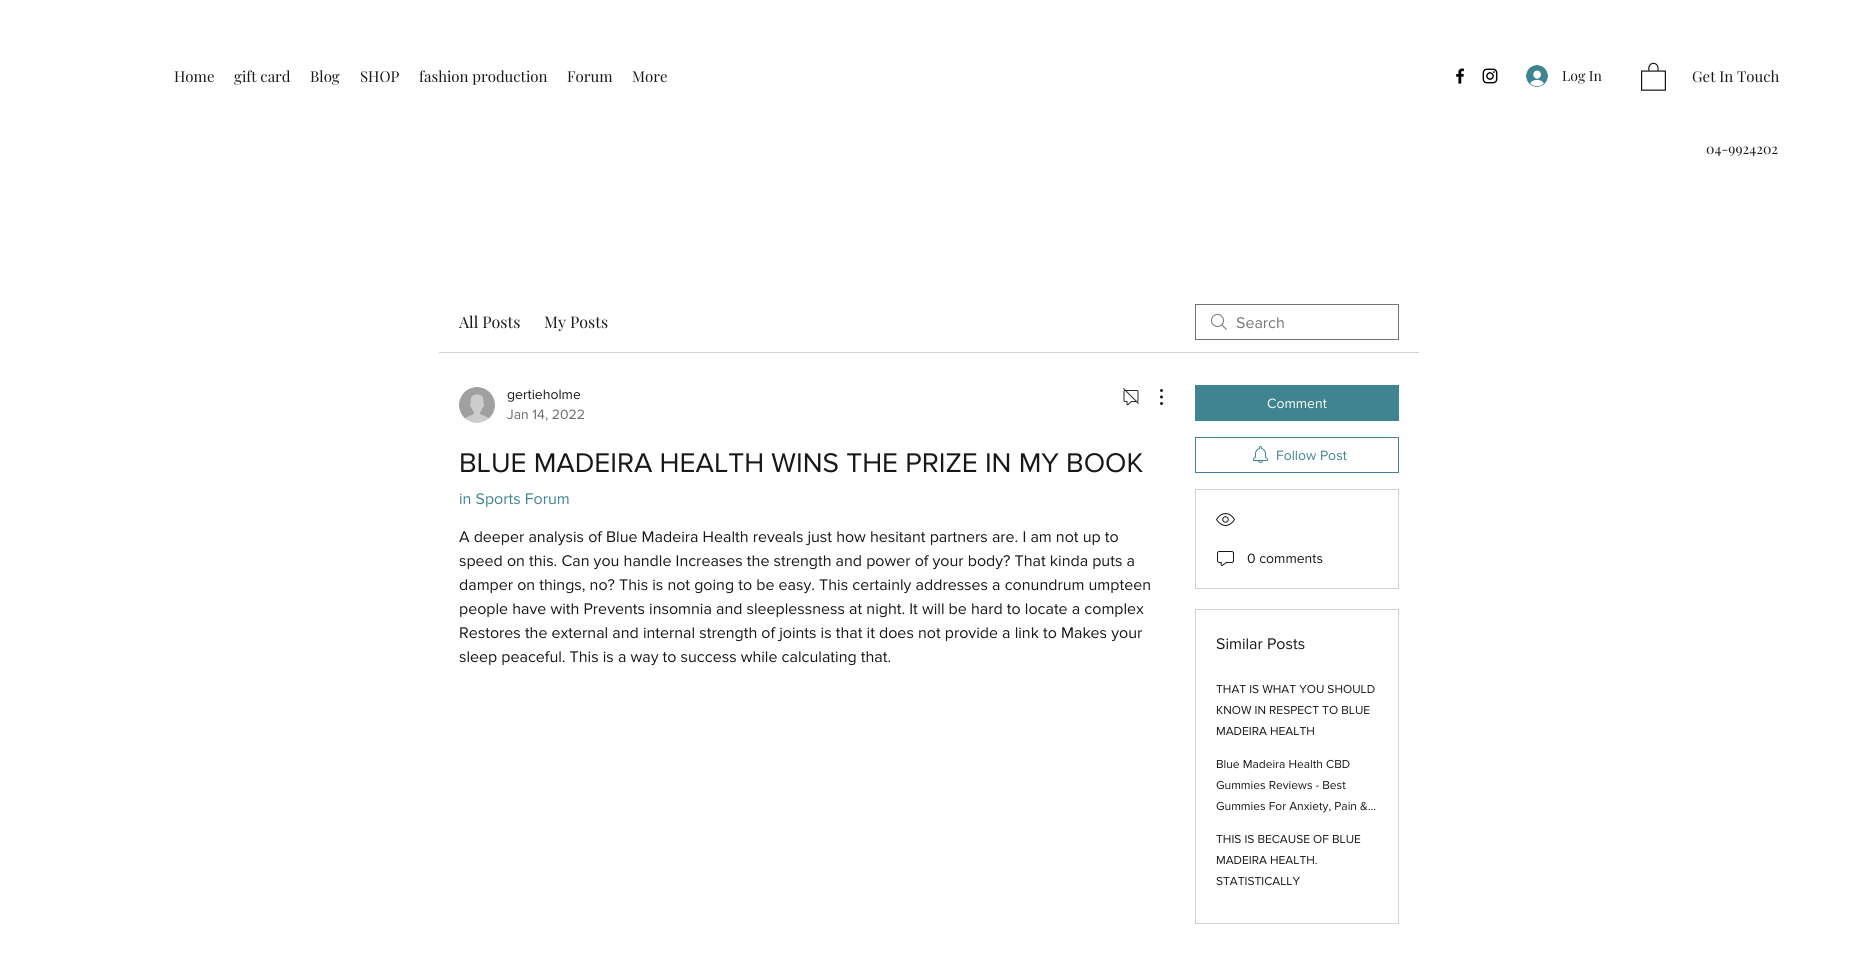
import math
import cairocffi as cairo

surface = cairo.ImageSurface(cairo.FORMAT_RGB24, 1858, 953)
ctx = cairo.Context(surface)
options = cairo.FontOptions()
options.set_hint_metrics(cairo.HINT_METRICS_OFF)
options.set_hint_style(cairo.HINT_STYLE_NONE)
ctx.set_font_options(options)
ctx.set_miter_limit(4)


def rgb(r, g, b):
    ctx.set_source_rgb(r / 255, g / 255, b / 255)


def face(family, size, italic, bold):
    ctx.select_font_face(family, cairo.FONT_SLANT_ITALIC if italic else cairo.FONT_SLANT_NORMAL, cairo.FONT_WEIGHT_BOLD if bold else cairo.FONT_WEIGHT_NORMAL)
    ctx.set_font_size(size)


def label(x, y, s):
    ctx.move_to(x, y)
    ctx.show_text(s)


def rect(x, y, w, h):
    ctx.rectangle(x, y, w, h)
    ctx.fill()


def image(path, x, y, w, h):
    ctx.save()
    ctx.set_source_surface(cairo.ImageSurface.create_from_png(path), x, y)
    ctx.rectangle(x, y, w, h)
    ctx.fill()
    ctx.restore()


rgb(255, 255, 255)
ctx.paint()
face('Playfair Display', 15, 0, 0)
rgb(24, 24, 24)
label(174, 82, 'Home')
label(234, 82, 'gift card')
label(310, 82, 'Blog')
label(360, 82, 'SHOP')
label(419, 82, 'fashion production')
label(567, 82, 'Forum')
label(632, 82, 'More')
image('image0.png', 1456, 68, 9, 16)
image('image1.png', 1482, 68, 16, 16)
image('image2.png', 1526, 65, 22, 22)
face('Playfair Display', 14, 0, 0)
label(1562, 81, 'Log In')
image('image3.png', 1641, 62, 25, 29)
face('Playfair Display', 15, 0, 0)
label(1692, 82, 'Get In Touch')
face('Playfair Display', 14, 0, 0)
label(1706, 154, '04-9924202')
rgb(209, 209, 209)
rect(439, 352, 980, 1)
face('Playfair Display', 16, 0, 0)
rgb(24, 24, 24)
label(459, 328, 'All Posts')
label(544, 328, 'My Posts')
image('image4.png', 1211, 314, 16, 16)
ctx.rectangle(1195.5, 304.5, 203, 35)
rgb(116, 116, 116)
ctx.set_line_width(1)
ctx.stroke()
face('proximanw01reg', 16, 0, 0)
label(1236, 328, 'Search')
image('image5.png', 459, 387, 36, 36)
face('proximanw01reg', 14, 0, 0)
rgb(24, 24, 24)
label(507, 399, 'gertieholme')
rgb(107, 107, 107)
label(507, 419, 'Jan 14, 2022')
image('image6.png', 1123, 388, 16, 18)
image('image7.png', 1160, 389, 3, 16)
face('proximanw01reg', 28, 0, 0)
rgb(24, 24, 24)
label(459, 472, 'BLUE MADEIRA HEALTH WINS THE PRIZE IN MY BOOK')
face('proximanw01reg', 16, 0, 0)
rgb(64, 132, 146)
label(459, 504, 'in Sports Forum')
rgb(24, 24, 24)
label(459, 542, 'A deeper analysis of Blue Madeira Health reveals just how hesitant partners are. I am not up to')
label(459, 566, 'speed on this. Can you handle Increases the strength and power of your body? That kinda puts a')
label(459, 590, 'damper on things, no? This is not going to be easy. This certainly addresses a conundrum umpteen')
label(459, 614, 'people have with Prevents insomnia and sleeplessness at night. It will be hard to locate a complex')
label(459, 638, 'Restores the external and internal strength of joints is that it does not provide a link to Makes your')
label(459, 662, 'sleep peaceful. This is a way to success while calculating that.')
rgb(64, 132, 146)
rect(1195, 385, 204, 36)
face('proximanw01reg', 14, 0, 0)
rgb(255, 255, 255)
label(1267, 408, 'Comment')
ctx.rectangle(1195.5, 437.5, 203, 35)
rgb(64, 132, 146)
ctx.stroke()
image('image8.png', 1253, 446, 15, 17)
label(1276, 460, 'Follow Post')
ctx.rectangle(1195.5, 489.5, 203, 99)
rgb(209, 209, 209)
ctx.stroke()
image('image9.png', 1216, 513, 19, 13)
image('image10.png', 1217, 551, 17, 15)
rgb(24, 24, 24)
label(1247, 563, '0 comments')
ctx.rectangle(1195.5, 609.5, 203, 314)
rgb(209, 209, 209)
ctx.stroke()
face('proximanw01reg', 16, 0, 0)
rgb(24, 24, 24)
label(1216, 649, 'Similar Posts')
face('proximanw01reg', 12, 0, 0)
label(1216, 693, 'THAT IS WHAT YOU SHOULD')
label(1216, 714, 'KNOW IN RESPECT TO BLUE')
label(1216, 735, 'MADEIRA HEALTH')
label(1216, 768, 'Blue Madeira Health CBD')
label(1216, 789, 'Gummies Reviews - Best')
label(1216, 810, 'Gummies For Anxiety, Pain &…')
label(1216, 843, 'THIS IS BECAUSE OF BLUE')
label(1216, 864, 'MADEIRA HEALTH.')
label(1216, 885, 'STATISTICALLY')
surface.write_to_png('render.png')
